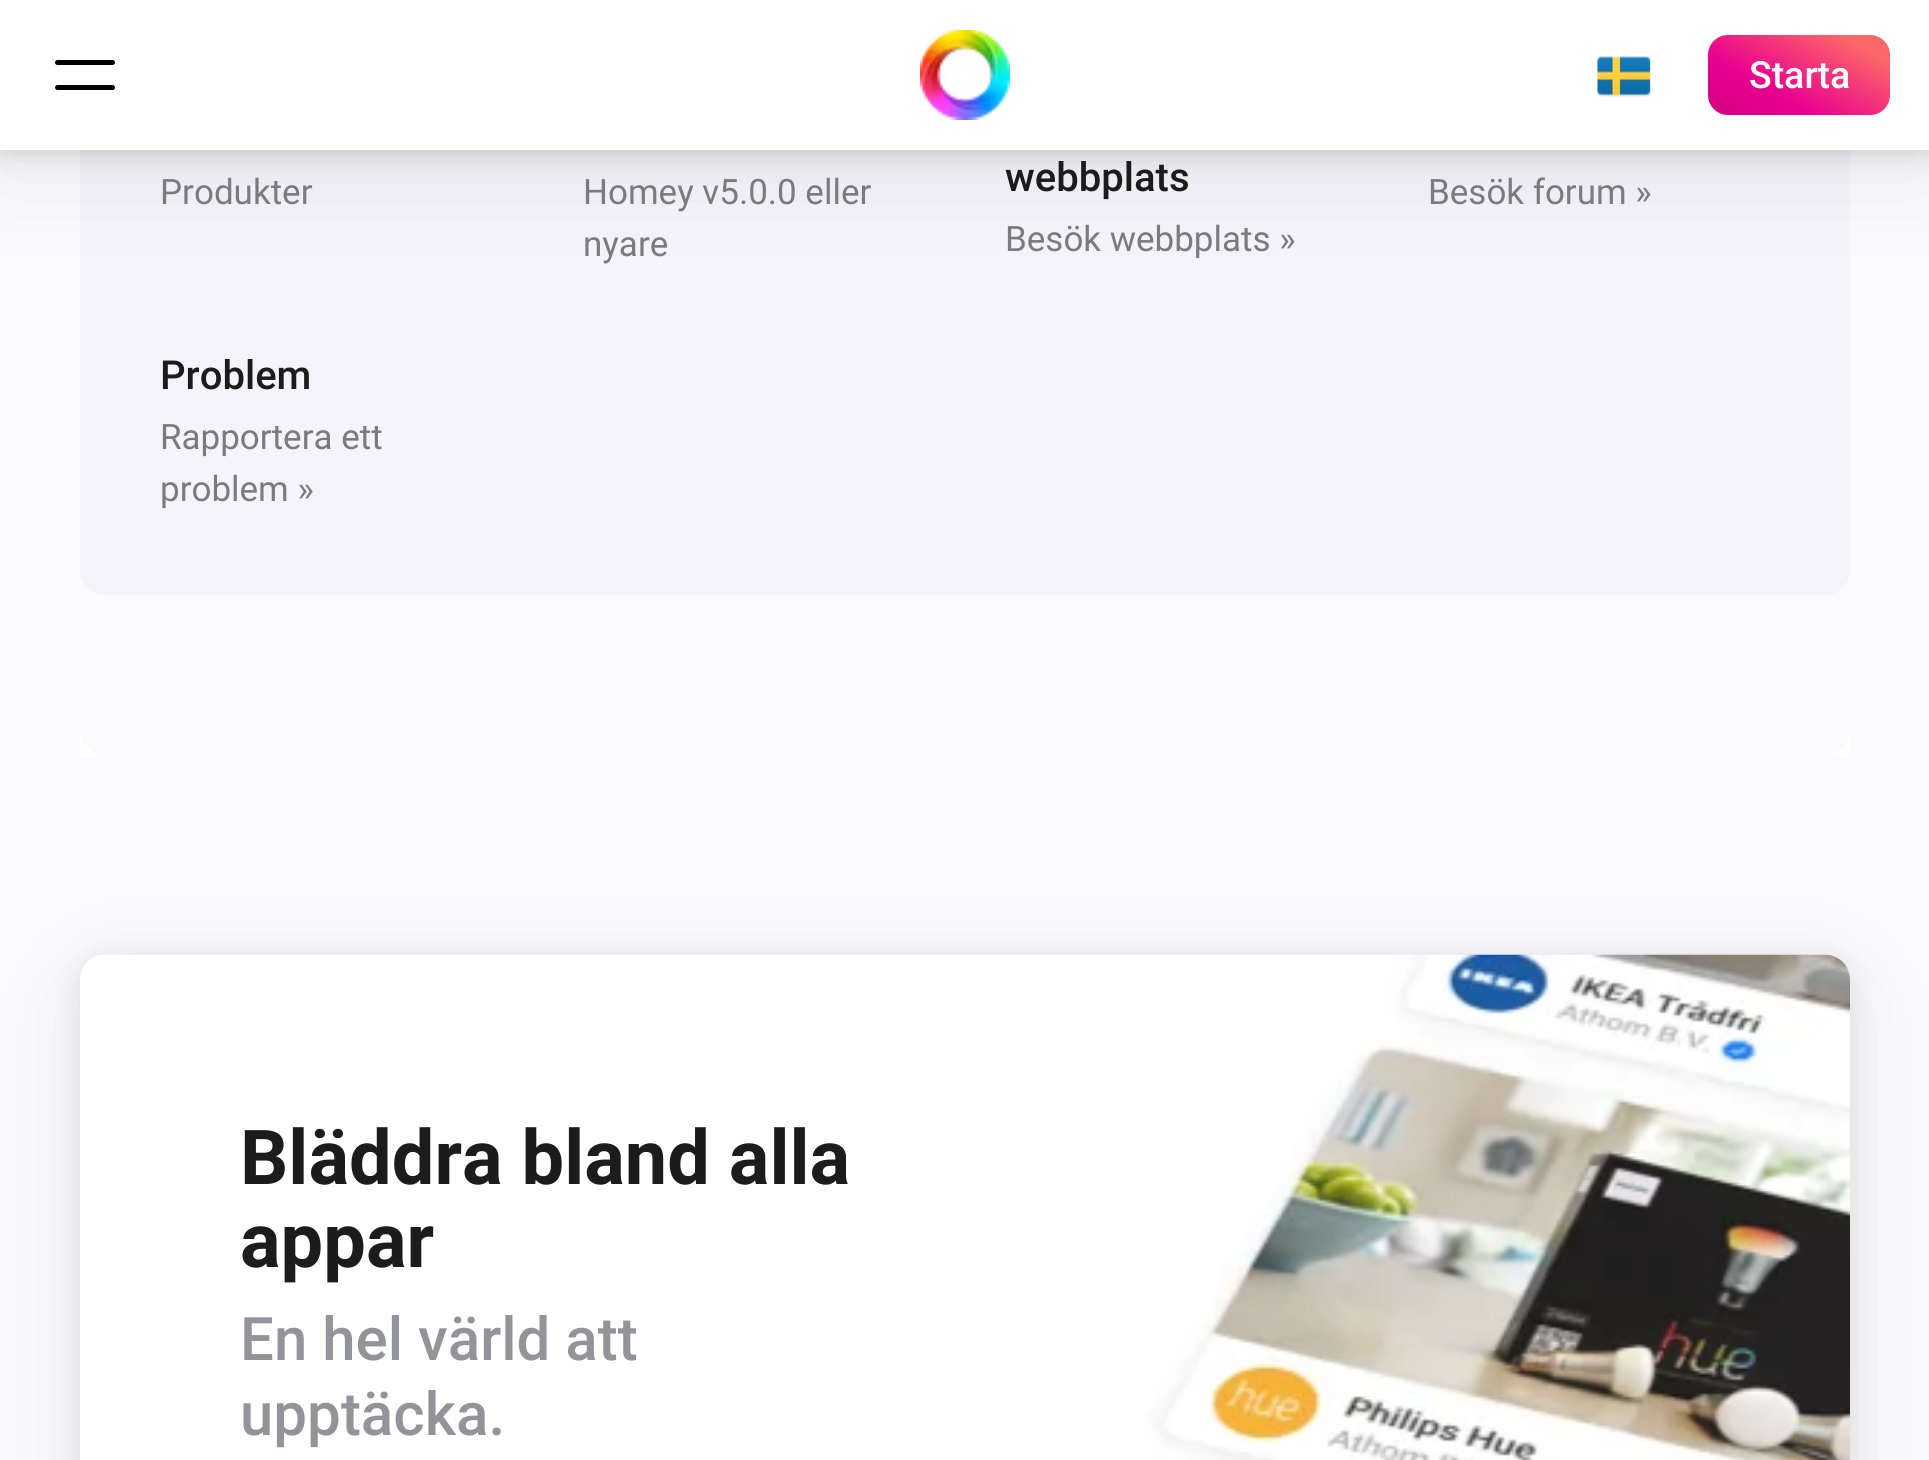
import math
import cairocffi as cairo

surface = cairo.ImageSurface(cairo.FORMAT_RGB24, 1929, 1460)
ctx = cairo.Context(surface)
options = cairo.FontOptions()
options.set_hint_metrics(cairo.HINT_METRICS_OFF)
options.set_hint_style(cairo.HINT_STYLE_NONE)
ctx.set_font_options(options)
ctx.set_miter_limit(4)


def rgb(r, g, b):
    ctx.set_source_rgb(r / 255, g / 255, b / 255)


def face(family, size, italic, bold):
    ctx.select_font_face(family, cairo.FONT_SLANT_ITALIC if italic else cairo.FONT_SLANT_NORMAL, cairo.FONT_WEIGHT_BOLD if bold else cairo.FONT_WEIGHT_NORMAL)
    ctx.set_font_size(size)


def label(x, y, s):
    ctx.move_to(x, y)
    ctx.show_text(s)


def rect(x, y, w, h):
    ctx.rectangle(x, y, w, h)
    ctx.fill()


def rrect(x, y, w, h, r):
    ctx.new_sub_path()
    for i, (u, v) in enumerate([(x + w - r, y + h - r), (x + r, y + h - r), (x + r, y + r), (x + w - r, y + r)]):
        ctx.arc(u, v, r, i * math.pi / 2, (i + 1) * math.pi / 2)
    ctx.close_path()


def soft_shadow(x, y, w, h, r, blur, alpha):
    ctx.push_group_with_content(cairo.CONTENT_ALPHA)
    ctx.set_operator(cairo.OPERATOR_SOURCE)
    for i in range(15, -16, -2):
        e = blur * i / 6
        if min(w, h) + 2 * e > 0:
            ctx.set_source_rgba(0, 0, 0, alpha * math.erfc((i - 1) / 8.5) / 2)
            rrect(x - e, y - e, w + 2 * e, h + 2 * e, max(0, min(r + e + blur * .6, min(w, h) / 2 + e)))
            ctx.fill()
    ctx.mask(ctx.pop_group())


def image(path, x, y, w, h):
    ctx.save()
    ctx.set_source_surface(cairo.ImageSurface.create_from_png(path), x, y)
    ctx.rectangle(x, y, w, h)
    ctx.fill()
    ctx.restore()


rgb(251, 251, 253)
ctx.paint()
rgb(255, 255, 255)
rect(80, 730, 1770, 25)
gradient = cairo.LinearGradient(965, -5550, 965, 755)
gradient.add_color_stop_rgba(0, 1, 1, 1, 1)
gradient.add_color_stop_rgba(0.32, 0.984, 0.984, 0.992, 1)
ctx.set_source(gradient)
rrect(80, -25, 1770, 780, 25)
ctx.fill()
rgb(244, 244, 250)
rrect(80, -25, 1770, 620, 25)
ctx.fill()
rgb(0, 0, 0)
soft_shadow(0, 5, 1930, 150, 0, 5, 0.04)
soft_shadow(0, 5, 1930, 150, 0, 15, 0.1)
soft_shadow(0, 25, 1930, 150, 0, 55, 0.07)
rgb(255, 255, 255)
rect(0, 0, 1929, 150)
rgb(0, 0, 0)
rrect(55, 60, 60, 5, 2.5)
ctx.fill()
rrect(55, 85, 60, 5, 2.5)
ctx.fill()
image('image0.png', 920, 30, 90, 90)
image('image1.png', 1596, 56, 55, 41)
gradient = cairo.LinearGradient(1767, 184, 1893, -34)
gradient.add_color_stop_rgba(0, 0.78, 0, 0.463, 1)
gradient.add_color_stop_rgba(0.33, 0.914, 0, 0.565, 1)
gradient.add_color_stop_rgba(0.66, 0.988, 0.404, 0.404, 1)
gradient.add_color_stop_rgba(1, 0.988, 0.404, 0.404, 1)
ctx.set_source(gradient)
rrect(1708, 35, 182, 80, 20)
ctx.fill()
face('Roboto Medium', 37.5, 0, 0)
rgb(255, 255, 255)
label(1749, 88, 'Starta')
face('Roboto', 35, 0, 0)
rgb(122, 122, 127)
label(160, 204, 'Produkter')
label(583, 204, 'Homey v5.0.0 eller')
label(583, 256, 'nyare')
face('Roboto Medium', 40, 0, 0)
rgb(28, 28, 28)
label(1005, 191, 'webbplats')
face('Roboto', 35, 0, 0)
rgb(122, 122, 127)
label(1005, 251, 'Besök webbplats »')
label(1428, 204, 'Besök forum »')
face('Roboto Medium', 40, 0, 0)
rgb(28, 28, 28)
label(160, 389, 'Problem')
face('Roboto', 35, 0, 0)
rgb(122, 122, 127)
label(160, 449, 'Rapportera ett')
label(160, 501, 'problem »')
rgb(0, 0, 0)
soft_shadow(80, 960, 1770, 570, 25, 15, 0.1)
soft_shadow(80, 980, 1770, 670, 25, 55, 0.07)
rgb(255, 255, 255)
rrect(80, 955, 1770, 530, 25)
ctx.fill()
image('image2.png', 83, 954, 1767, 506)
face('Roboto', 75.75, 0, 1)
rgb(28, 28, 28)
label(240, 1184, 'Bläddra bland alla')
label(240, 1267, 'appar')
face('Roboto Medium', 60, 0, 0)
rgb(147, 147, 154)
label(240, 1360, 'En hel värld att')
label(240, 1435, 'upptäcka.')
surface.write_to_png('render.png')
